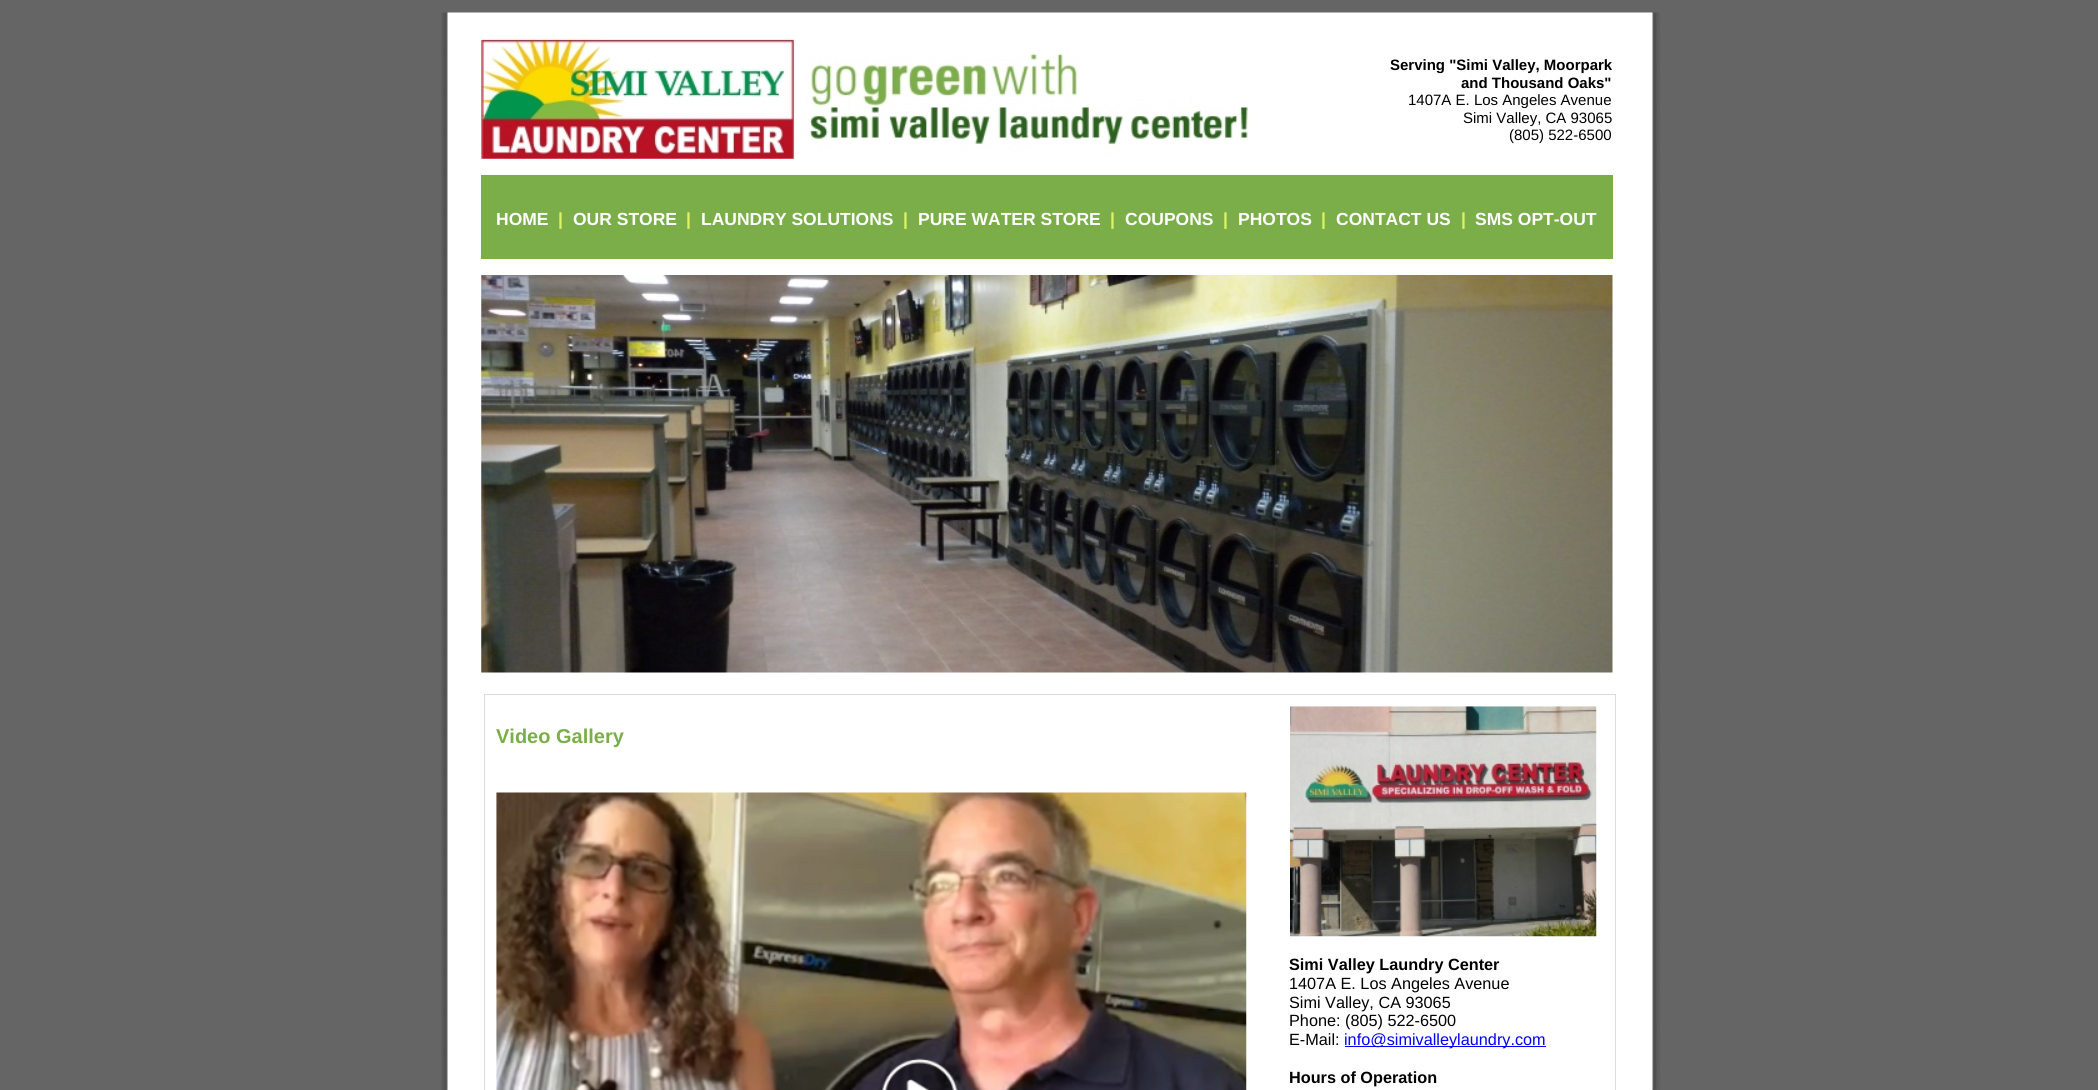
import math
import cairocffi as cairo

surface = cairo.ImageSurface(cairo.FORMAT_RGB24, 2098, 1090)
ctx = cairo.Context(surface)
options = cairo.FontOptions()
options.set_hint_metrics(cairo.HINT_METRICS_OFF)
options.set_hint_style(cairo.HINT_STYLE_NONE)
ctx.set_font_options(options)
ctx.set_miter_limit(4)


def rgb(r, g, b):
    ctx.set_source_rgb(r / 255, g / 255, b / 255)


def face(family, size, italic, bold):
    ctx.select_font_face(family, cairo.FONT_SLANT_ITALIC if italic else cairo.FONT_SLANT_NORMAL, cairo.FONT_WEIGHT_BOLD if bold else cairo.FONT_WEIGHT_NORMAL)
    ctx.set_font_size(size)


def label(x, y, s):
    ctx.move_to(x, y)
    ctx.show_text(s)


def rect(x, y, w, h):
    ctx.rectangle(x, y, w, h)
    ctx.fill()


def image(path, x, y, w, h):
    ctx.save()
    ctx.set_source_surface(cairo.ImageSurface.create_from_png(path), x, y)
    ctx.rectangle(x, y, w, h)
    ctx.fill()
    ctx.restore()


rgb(101, 101, 101)
ctx.paint()
image('image0.png', 441, 12, 1219, 1078)
image('image1.png', 481, 38, 769, 121)
face('Liberation Sans', 15, 0, 1)
rgb(0, 0, 0)
label(1390, 70, 'Serving "Simi Valley, Moorpark')
label(1461, 88, 'and Thousand Oaks"')
face('Liberation Sans', 15, 0, 0)
label(1408, 105, '1407A E. Los Angeles Avenue')
label(1463, 123, 'Simi Valley, CA 93065')
label(1509, 140, '(805) 522-6500')
rgb(123, 174, 73)
rect(481, 175, 1132, 84)
face('Liberation Sans', 17.5, 0, 1)
rgb(255, 255, 255)
label(496, 225, 'HOME')
rgb(220, 243, 100)
label(558, 225, '|')
rgb(255, 255, 255)
label(573, 225, 'OUR STORE')
rgb(220, 243, 100)
label(686, 225, '|')
rgb(255, 255, 255)
label(701, 225, 'LAUNDRY SOLUTIONS')
rgb(220, 243, 100)
label(903, 225, '|')
rgb(255, 255, 255)
label(918, 225, 'PURE WATER STORE')
rgb(220, 243, 100)
label(1110, 225, '|')
rgb(255, 255, 255)
label(1125, 225, 'COUPONS')
rgb(220, 243, 100)
label(1223, 225, '|')
rgb(255, 255, 255)
label(1238, 225, 'PHOTOS')
rgb(220, 243, 100)
label(1321, 225, '|')
rgb(255, 255, 255)
label(1336, 225, 'CONTACT US')
rgb(220, 243, 100)
label(1461, 225, '|')
rgb(255, 255, 255)
label(1475, 225, 'SMS OPT-OUT')
image('image2.png', 481, 275, 1132, 398)
ctx.rectangle(484.5, 694.5, 1131, 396)
rgb(220, 220, 220)
ctx.set_line_width(1)
ctx.stroke()
face('Liberation Sans', 20, 0, 1)
rgb(123, 174, 73)
label(496, 743, 'Video Gallery')
image('image3.png', 496, 792, 751, 298)
image('image4.png', 1290, 706, 307, 231)
face('Liberation Sans', 16.25, 0, 1)
rgb(0, 0, 0)
label(1289, 970, 'Simi Valley Laundry Center')
face('Liberation Sans', 16.25, 0, 0)
label(1289, 989, '1407A E. Los Angeles Avenue')
label(1289, 1008, 'Simi Valley, CA 93065')
label(1289, 1026, 'Phone: (805) 522-6500')
label(1289, 1045, 'E-Mail:')
rgb(0, 0, 255)
rect(1345, 1046, 201, 1)
label(1344, 1045, 'info@simivalleylaundry.com')
face('Liberation Sans', 16.25, 0, 1)
rgb(0, 0, 0)
label(1289, 1083, 'Hours of Operation')
surface.write_to_png('render.png')
